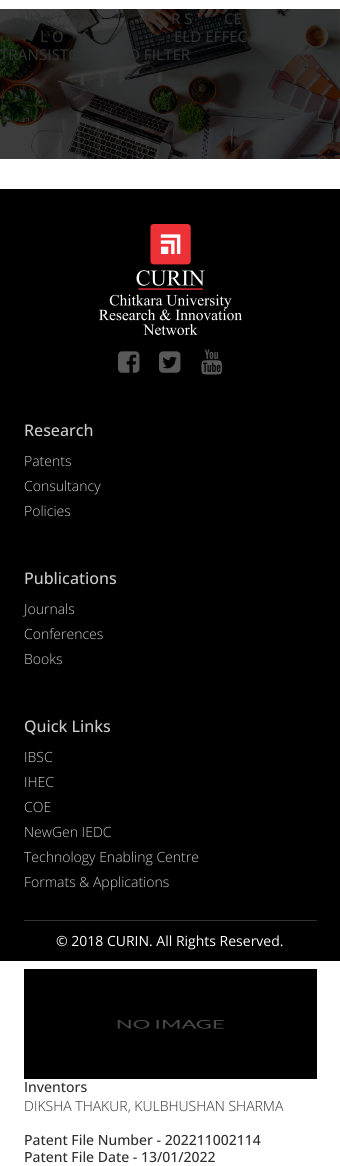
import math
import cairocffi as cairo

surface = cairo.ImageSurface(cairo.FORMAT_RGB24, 340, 1166)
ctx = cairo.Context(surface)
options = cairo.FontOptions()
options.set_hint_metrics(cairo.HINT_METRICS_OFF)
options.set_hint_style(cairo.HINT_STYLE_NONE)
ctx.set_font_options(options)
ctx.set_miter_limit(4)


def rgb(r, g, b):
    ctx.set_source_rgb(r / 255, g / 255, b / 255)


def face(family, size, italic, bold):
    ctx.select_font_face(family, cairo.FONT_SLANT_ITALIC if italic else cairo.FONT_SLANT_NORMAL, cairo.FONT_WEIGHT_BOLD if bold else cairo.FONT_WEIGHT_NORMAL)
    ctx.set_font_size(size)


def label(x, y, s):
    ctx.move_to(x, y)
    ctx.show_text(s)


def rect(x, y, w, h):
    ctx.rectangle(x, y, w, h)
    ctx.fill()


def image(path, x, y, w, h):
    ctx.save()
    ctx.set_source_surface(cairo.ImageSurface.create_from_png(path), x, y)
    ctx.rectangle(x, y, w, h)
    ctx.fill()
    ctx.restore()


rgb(255, 255, 255)
ctx.paint()
image('image0.png', 0, 9, 340, 150)
face('Open Sans Medium', 15, 0, 0)
rgb(46, 46, 46)
label(171, 24, 'R S')
label(224, 24, 'CE')
label(40, 42, 'L O')
label(174, 42, 'ELD EFFEC')
label(0, 60, 'TRANSISTO')
label(129, 60, 'D FILTER')
rgb(0, 0, 0)
rect(0, 189, 340, 772)
image('image1.png', 99, 224, 143, 111)
image('image2.png', 118, 351, 22, 22)
image('image3.png', 159, 351, 22, 22)
image('image4.png', 201, 349, 21, 26)
face('Open Sans Medium', 16, 0, 0)
rgb(204, 204, 204)
label(24, 436, 'Research')
face('Open Sans Light', 14, 0, 0)
label(24, 466, 'Patents')
label(24, 491, 'Consultancy')
label(24, 516, 'Policies')
face('Open Sans Medium', 16, 0, 0)
label(24, 584, 'Publications')
face('Open Sans Light', 14, 0, 0)
label(24, 614, 'Journals')
label(24, 639, 'Conferences')
label(24, 664, 'Books')
face('Open Sans Medium', 16, 0, 0)
label(24, 732, 'Quick Links')
face('Open Sans Light', 14, 0, 0)
label(24, 762, 'IBSC')
label(24, 787, 'IHEC')
label(24, 812, 'COE')
label(24, 837, 'NewGen IEDC')
label(24, 862, 'Technology Enabling Centre')
label(24, 887, 'Formats & Applications')
rgb(51, 51, 51)
rect(24, 920, 293, 1)
face('Open Sans', 14, 0, 0)
rgb(255, 255, 255)
label(56, 946, '© 2018 CURIN. All Rights Reserved.')
image('image5.png', 24, 969, 293, 110)
face('Open Sans Medium', 14, 0, 0)
rgb(46, 46, 46)
label(24, 1092, 'Inventors')
face('Open Sans Light', 14, 0, 0)
label(24, 1111, 'DIKSHA THAKUR, KULBHUSHAN SHARMA')
face('Open Sans Medium', 14, 0, 0)
label(24, 1145, 'Patent File Number - 202211002114')
label(24, 1162, 'Patent File Date - 13/01/2022')
surface.write_to_png('render.png')
